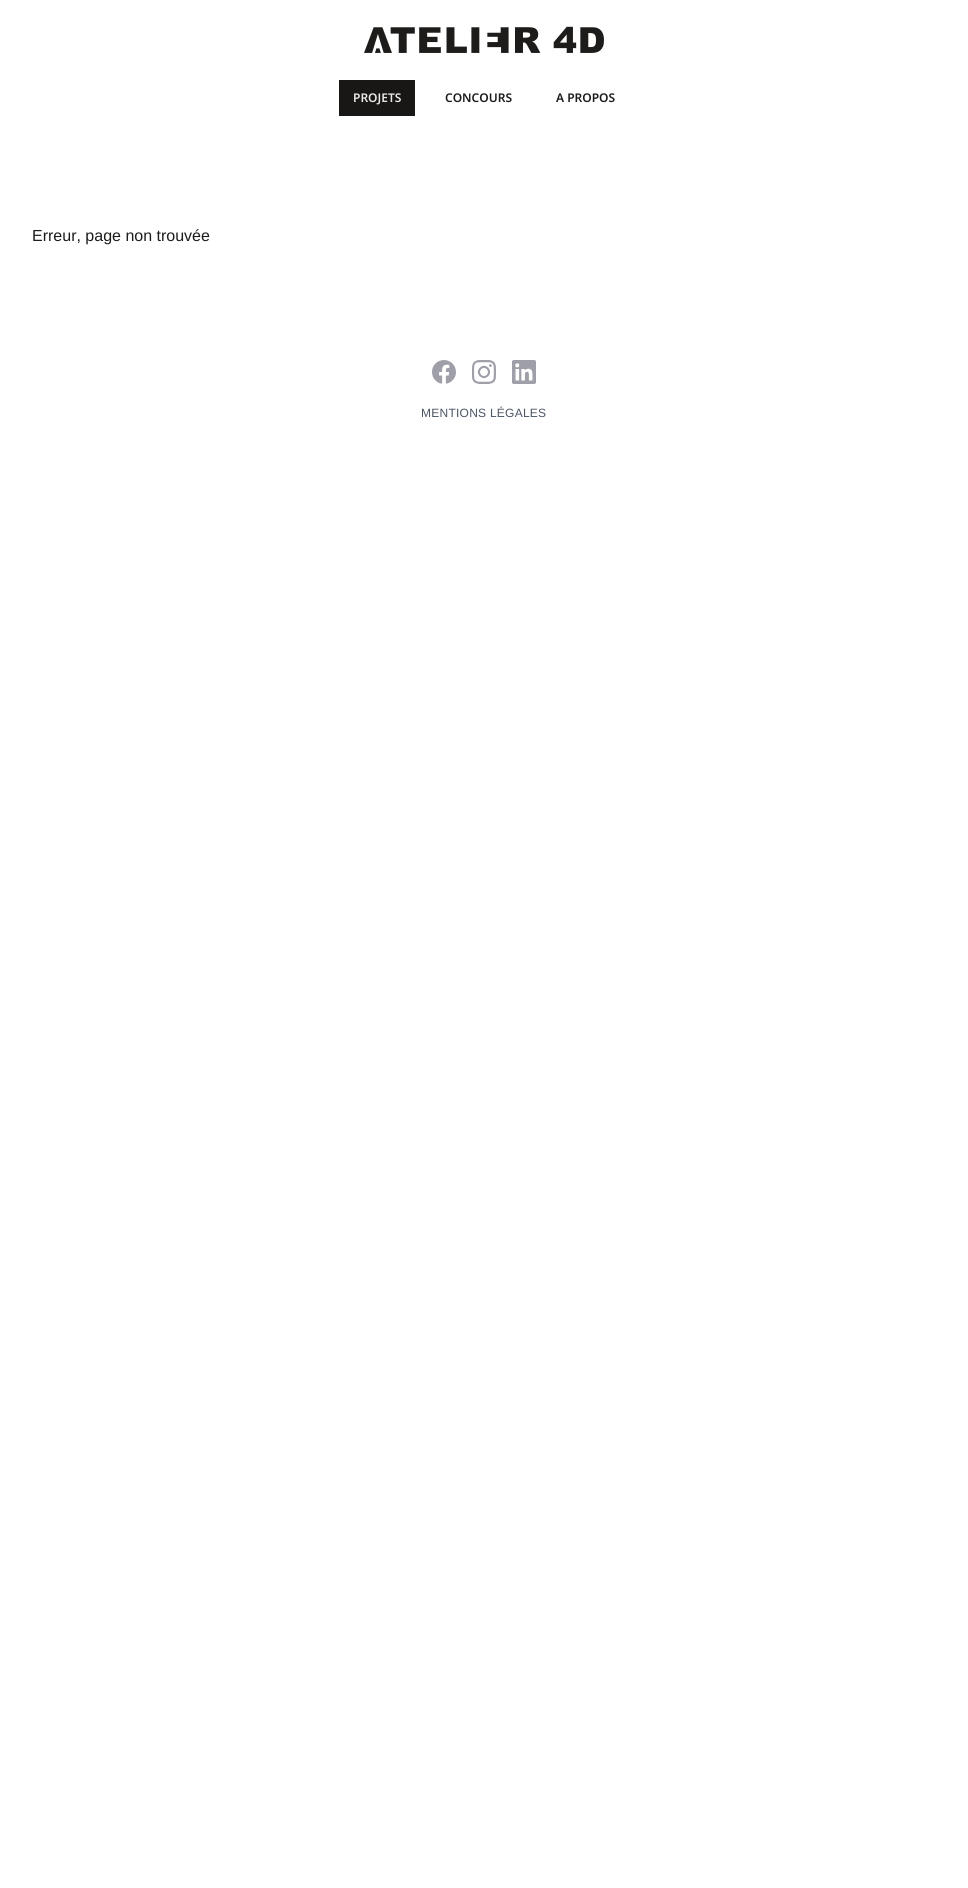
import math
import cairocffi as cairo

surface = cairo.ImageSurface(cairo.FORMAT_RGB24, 968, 1888)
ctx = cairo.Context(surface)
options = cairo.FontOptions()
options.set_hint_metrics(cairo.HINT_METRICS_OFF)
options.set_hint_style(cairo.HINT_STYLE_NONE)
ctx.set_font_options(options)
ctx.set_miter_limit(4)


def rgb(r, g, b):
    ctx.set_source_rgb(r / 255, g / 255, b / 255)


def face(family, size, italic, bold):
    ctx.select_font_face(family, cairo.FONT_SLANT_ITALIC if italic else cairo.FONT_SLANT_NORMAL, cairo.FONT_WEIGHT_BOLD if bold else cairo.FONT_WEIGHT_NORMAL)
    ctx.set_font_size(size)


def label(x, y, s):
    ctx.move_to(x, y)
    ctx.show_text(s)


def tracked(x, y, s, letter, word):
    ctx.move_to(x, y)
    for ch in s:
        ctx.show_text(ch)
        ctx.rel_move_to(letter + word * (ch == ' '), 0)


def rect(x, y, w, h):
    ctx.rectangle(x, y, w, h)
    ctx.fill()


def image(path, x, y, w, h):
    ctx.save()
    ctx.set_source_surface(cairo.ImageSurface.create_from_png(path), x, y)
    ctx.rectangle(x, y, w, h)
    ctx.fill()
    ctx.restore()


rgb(255, 255, 255)
ctx.paint()
image('image0.png', 364, 26, 240, 27)
rgb(25, 23, 21)
rect(339, 80, 76, 36)
face('Noto Sans SemiBold', 12, 0, 0)
rgb(234, 232, 230)
label(353, 102, 'PROJETS')
rgb(30, 28, 26)
label(445, 102, 'CONCOURS')
label(556, 102, 'A PROPOS')
face('Liberation Sans', 16, 0, 0)
label(32, 241, 'Erreur, page non trouvée')
image('image1.png', 432, 360, 24, 24)
image('image2.png', 472, 360, 24, 24)
image('image3.png', 512, 360, 24, 24)
face('Liberation Sans', 12, 0, 0)
rgb(75, 85, 99)
tracked(421, 417, 'MENTIONS LÉGALES', 0.25, 0)
surface.write_to_png('render.png')
